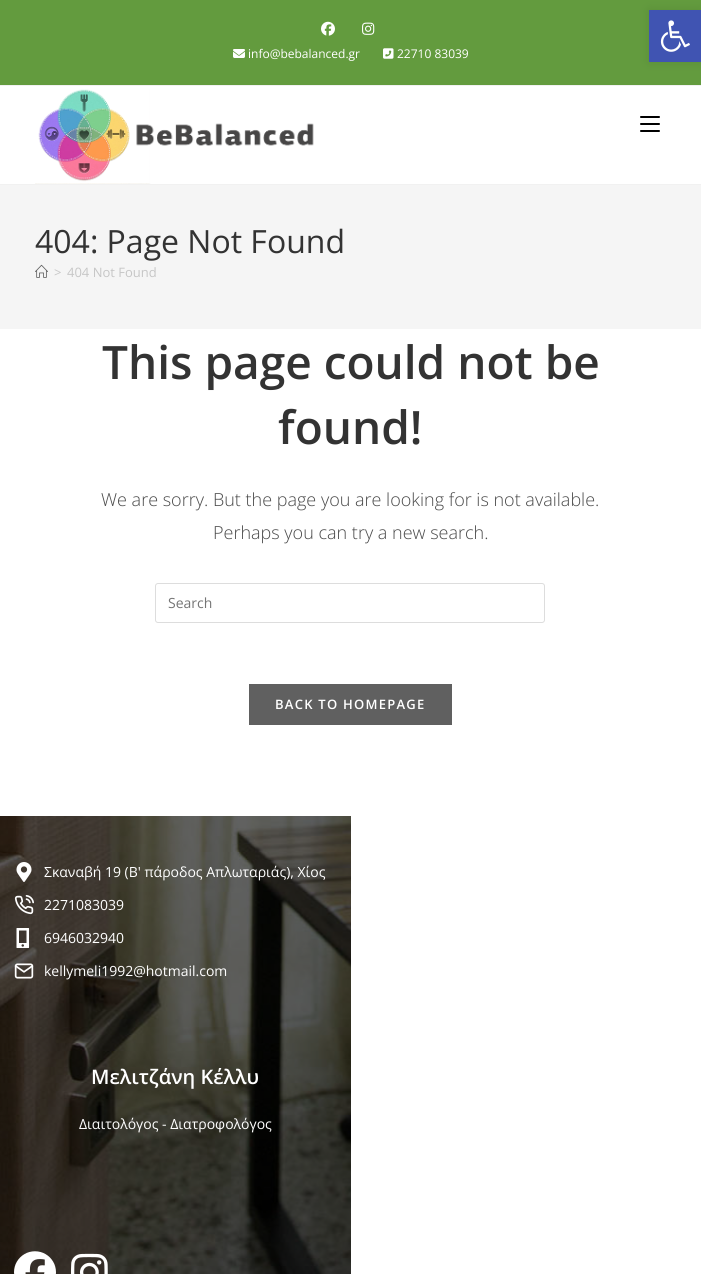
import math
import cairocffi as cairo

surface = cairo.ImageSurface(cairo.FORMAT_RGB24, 701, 1274)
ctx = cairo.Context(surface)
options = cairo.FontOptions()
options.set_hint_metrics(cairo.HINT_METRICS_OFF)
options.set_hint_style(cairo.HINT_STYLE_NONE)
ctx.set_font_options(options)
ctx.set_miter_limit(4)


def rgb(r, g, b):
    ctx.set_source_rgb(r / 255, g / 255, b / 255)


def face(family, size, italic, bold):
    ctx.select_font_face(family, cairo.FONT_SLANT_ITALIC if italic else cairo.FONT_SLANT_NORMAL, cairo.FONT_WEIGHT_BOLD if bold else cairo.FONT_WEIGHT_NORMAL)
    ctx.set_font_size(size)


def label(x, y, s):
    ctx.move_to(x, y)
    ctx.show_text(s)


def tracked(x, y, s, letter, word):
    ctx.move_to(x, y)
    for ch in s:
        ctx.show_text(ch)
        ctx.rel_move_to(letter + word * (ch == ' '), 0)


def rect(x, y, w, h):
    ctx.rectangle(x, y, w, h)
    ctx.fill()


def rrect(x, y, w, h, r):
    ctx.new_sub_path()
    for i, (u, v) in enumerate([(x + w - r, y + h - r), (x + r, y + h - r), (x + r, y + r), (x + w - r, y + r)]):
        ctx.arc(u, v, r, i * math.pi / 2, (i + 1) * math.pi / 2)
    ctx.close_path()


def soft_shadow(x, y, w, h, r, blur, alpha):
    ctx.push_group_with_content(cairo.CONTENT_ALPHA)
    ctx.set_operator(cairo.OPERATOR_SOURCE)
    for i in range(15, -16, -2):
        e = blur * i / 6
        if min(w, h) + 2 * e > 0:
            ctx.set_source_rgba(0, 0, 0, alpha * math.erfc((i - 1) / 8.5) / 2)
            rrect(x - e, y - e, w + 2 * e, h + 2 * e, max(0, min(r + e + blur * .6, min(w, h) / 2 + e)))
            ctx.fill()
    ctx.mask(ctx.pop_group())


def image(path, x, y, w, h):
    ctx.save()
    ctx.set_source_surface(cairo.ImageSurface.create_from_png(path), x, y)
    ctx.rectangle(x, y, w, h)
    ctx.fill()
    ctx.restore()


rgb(255, 255, 255)
ctx.paint()
rgb(99, 155, 62)
rect(0, 0, 701, 85)
rgb(0, 0, 0)
soft_shadow(649, 10, 52, 52, 0, 5, 0.1)
rgb(64, 84, 178)
rect(649, 10, 52, 52)
image('image0.png', 660, 20, 30, 32)
rgb(241, 241, 241)
rect(0, 85, 701, 1)
image('image1.png', 321, 21, 14, 15)
image('image2.png', 362, 22, 13, 13)
image('image3.png', 233, 49, 12, 9)
face('Open Sans', 12, 0, 0)
rgb(255, 255, 255)
label(248, 58, 'info@bebalanced.gr')
image('image4.png', 383, 48, 11, 11)
label(397, 58, '22710 83039')
rgb(241, 241, 241)
rect(0, 184, 701, 1)
image('image5.png', 35, 89, 279, 95)
rgb(0, 0, 0)
rrect(640, 123, 20, 2, 1)
ctx.fill()
rrect(640, 116, 20, 2, 1)
ctx.fill()
rrect(640, 130, 20, 2, 1)
ctx.fill()
rgb(245, 245, 245)
rect(0, 185, 701, 144)
face('Open Sans', 32, 0, 0)
rgb(51, 51, 51)
label(35, 253, '404: Page Not Found')
image('image6.png', 35, 264, 13, 14)
face('Open Sans', 13, 0, 0)
rgb(198, 198, 198)
label(54, 277, '>')
label(67, 277, '404 Not Found')
face('Open Sans SemiBold', 46, 0, 0)
rgb(51, 51, 51)
label(102, 379, 'This page could not be')
label(278, 444, 'found!')
face('Open Sans Light', 18, 0, 0)
rgb(74, 74, 74)
label(101, 506, 'We are sorry. But the page you are looking for is not available.')
label(213, 539, 'Perhaps you can try a new search.')
rrect(155.5, 583.5, 389, 39, 2.5)
rgb(221, 221, 221)
ctx.set_line_width(1)
ctx.stroke()
face('Open Sans', 14, 0, 0)
rgb(117, 117, 117)
label(168, 608, 'Search')
rgb(96, 96, 96)
rect(249, 684, 203, 41)
face('Open Sans SemiBold', 13, 0, 0)
rgb(255, 255, 255)
tracked(275, 709, 'BACK TO HOMEPAGE', 1.25, 0)
image('image7.png', 0, 816, 351, 458)
image('image8.png', 16, 862, 16, 20)
face('Open Sans', 14, 0, 0)
label(44, 877, 'Σκαναβή 19 (Β\' πάροδος Απλωταριάς), Χίος')
image('image9.png', 14, 895, 20, 20)
label(44, 910, '2271083039')
image('image10.png', 16, 928, 14, 20)
label(44, 943, '6946032940')
image('image11.png', 14, 963, 20, 16)
label(44, 976, 'kellymeli1992@hotmail.com')
face('Open Sans SemiBold', 20, 0, 0)
label(91, 1084, 'Μελιτζάνη Κέλλυ')
face('Open Sans', 14, 0, 0)
label(79, 1129, 'Διαιτολόγος - Διατροφολόγος')
image('image12.png', 14, 1251, 42, 23)
image('image13.png', 71, 1253, 37, 21)
surface.write_to_png('render.png')
